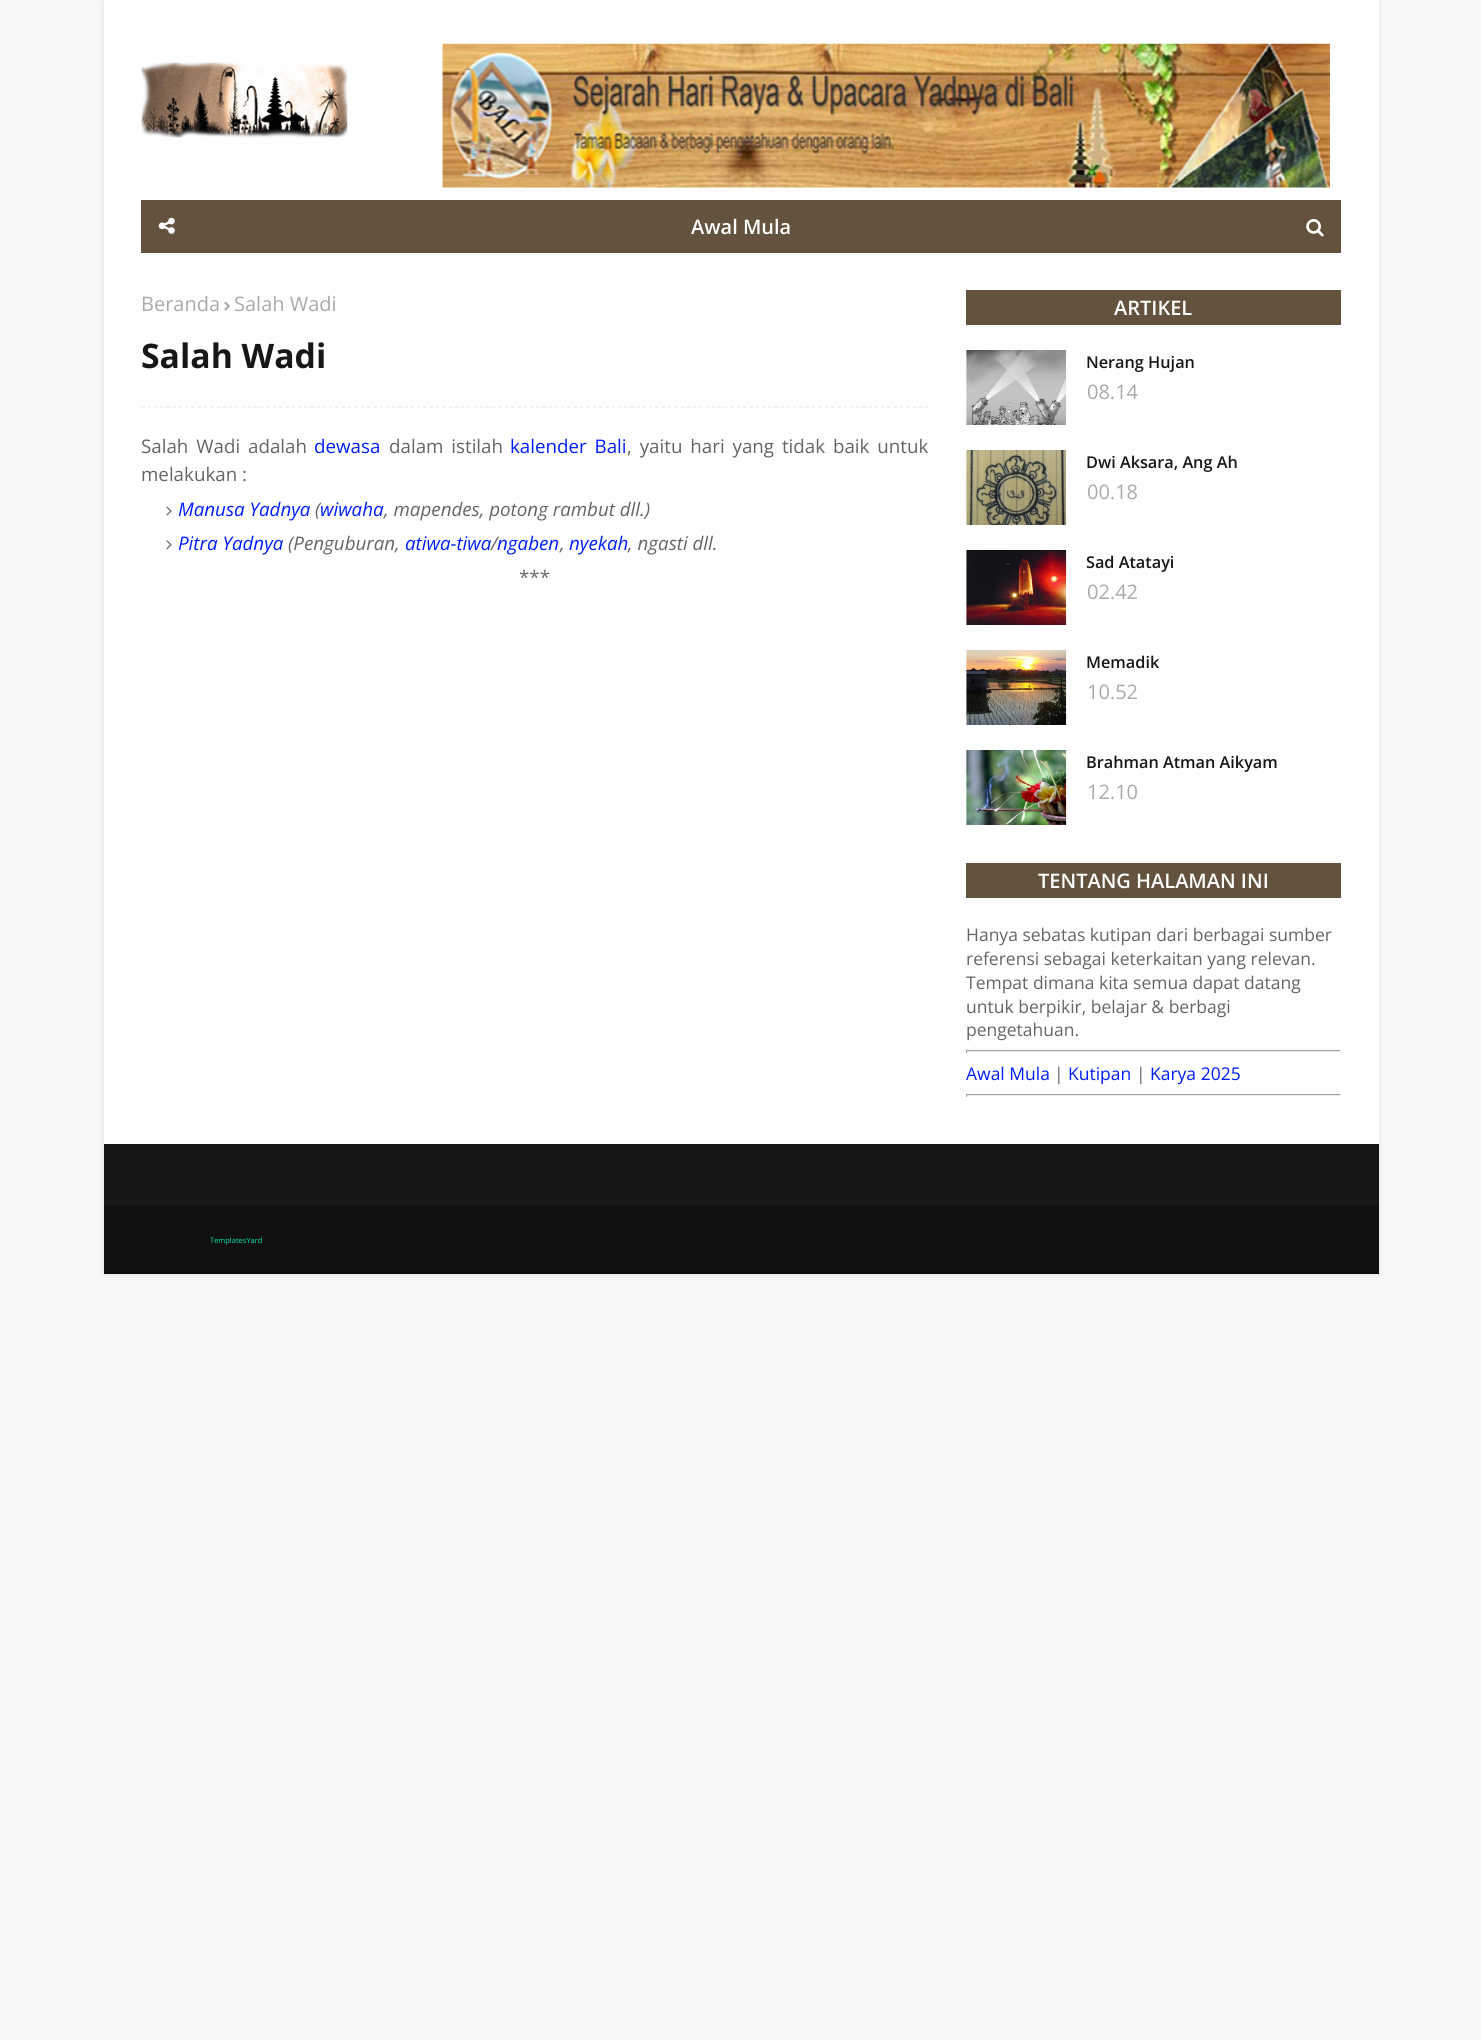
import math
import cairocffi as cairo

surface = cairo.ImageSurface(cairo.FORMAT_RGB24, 1481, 2040)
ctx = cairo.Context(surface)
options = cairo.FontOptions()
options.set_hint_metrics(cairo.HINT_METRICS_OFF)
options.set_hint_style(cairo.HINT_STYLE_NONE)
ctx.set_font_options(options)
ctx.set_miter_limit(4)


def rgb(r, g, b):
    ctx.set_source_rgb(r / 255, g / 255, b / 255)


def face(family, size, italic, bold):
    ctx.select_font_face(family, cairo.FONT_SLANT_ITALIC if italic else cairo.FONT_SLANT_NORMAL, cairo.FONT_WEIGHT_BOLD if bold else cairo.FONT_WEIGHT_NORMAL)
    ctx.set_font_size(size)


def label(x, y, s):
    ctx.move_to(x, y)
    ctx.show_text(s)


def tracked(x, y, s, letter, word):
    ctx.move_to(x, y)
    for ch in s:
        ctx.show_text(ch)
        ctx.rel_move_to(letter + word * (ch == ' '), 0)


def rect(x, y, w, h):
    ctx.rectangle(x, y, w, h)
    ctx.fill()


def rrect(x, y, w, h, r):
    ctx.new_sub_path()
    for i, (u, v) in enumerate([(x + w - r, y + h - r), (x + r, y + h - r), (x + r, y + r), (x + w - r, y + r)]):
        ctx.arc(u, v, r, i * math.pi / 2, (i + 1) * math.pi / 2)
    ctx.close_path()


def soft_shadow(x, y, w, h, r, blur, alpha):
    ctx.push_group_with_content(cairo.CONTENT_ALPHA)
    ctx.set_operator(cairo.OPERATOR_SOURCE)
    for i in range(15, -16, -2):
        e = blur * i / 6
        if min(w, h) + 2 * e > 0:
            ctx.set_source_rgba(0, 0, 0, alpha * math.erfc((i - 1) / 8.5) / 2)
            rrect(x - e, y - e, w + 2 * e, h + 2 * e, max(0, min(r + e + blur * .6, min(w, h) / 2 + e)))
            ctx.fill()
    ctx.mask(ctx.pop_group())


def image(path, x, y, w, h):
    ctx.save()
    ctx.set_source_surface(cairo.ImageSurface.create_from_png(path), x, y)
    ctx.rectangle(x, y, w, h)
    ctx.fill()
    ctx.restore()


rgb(248, 248, 248)
ctx.paint()
rgb(0, 0, 0)
soft_shadow(104, 0, 1275, 1274, 0, 3, 0.1)
rgb(255, 255, 255)
rect(104, 0, 1275, 1144)
image('image0.png', 141, 62, 207, 76)
image('image1.png', 442, 43, 888, 145)
rgb(99, 83, 62)
rect(141, 200, 1200, 53)
image('image2.png', 158, 217, 17, 17)
face('Open Sans SemiBold', 20, 0, 0)
rgb(255, 255, 255)
label(691, 234, 'Awal Mula')
image('image3.png', 1306, 219, 18, 18)
face('Open Sans', 20, 0, 0)
rgb(170, 170, 170)
label(141, 311, 'Beranda')
image('image4.png', 224, 301, 6, 10)
label(234, 311, 'Salah Wadi')
face('Open Sans', 33.75, 0, 1)
rgb(23, 23, 23)
label(141, 368, 'Salah Wadi')
ctx.new_path()
ctx.move_to(141, 407)
ctx.line_to(929, 407)
rgb(235, 235, 235)
ctx.set_line_width(1.2)
ctx.set_dash([3.75, 2.52])
ctx.stroke()
face('Open Sans', 18.75, 0, 0)
rgb(101, 101, 101)
tracked(141, 453, 'Salah Wadi adalah', 0, 3)
rgb(0, 30, 255)
label(314, 453, 'dewasa')
rgb(101, 101, 101)
tracked(389, 453, 'dalam istilah', 0, 3)
rgb(0, 30, 255)
tracked(510, 453, 'kalender Bali', 0, 3)
rgb(101, 101, 101)
tracked(627, 453, ', yaitu hari yang tidak baik untuk', 0, 3)
label(141, 481, 'melakukan :')
image('image5.png', 166, 506, 6, 10)
face('Open Sans', 18.75, 1, 0)
rgb(0, 30, 255)
label(178, 516, 'Manusa Yadnya')
rgb(101, 101, 101)
label(315, 516, '(')
rgb(0, 30, 255)
label(320, 516, 'wiwaha')
rgb(101, 101, 101)
label(384, 516, ', mapendes, potong rambut dll.)')
image('image6.png', 166, 540, 6, 10)
rgb(0, 30, 255)
label(178, 550, 'Pitra Yadnya')
rgb(101, 101, 101)
label(288, 550, '(Penguburan,')
rgb(0, 30, 255)
label(405, 550, 'atiwa-tiwa')
rgb(101, 101, 101)
label(491, 550, '/')
rgb(0, 30, 255)
label(497, 550, 'ngaben')
rgb(101, 101, 101)
label(560, 550, ',')
rgb(0, 30, 255)
label(569, 550, 'nyekah')
rgb(101, 101, 101)
label(628, 550, ', ngasti dll.')
face('Open Sans', 18.75, 0, 0)
label(519, 584, '***')
rgb(99, 83, 62)
rect(966, 290, 375, 35)
face('Open Sans SemiBold', 20, 0, 0)
rgb(255, 255, 255)
label(1114, 315, 'ARTIKEL')
rgb(248, 248, 248)
rect(966, 350, 1, 75)
image('image7.png', 966, 350, 101, 75)
face('Open Sans SemiBold', 16.25, 0, 0)
rgb(23, 23, 23)
label(1086, 368, 'Nerang Hujan')
face('Open Sans', 20, 0, 0)
rgb(170, 170, 170)
label(1087, 399, '08.14')
rgb(248, 248, 248)
rect(966, 450, 1, 75)
image('image8.png', 966, 450, 101, 75)
face('Open Sans SemiBold', 16.25, 0, 0)
rgb(23, 23, 23)
label(1086, 468, 'Dwi Aksara, Ang Ah')
face('Open Sans', 20, 0, 0)
rgb(170, 170, 170)
label(1087, 499, '00.18')
rgb(248, 248, 248)
rect(966, 550, 1, 75)
image('image9.png', 966, 550, 101, 75)
face('Open Sans SemiBold', 16.25, 0, 0)
rgb(23, 23, 23)
label(1086, 568, 'Sad Atatayi')
face('Open Sans', 20, 0, 0)
rgb(170, 170, 170)
label(1087, 599, '02.42')
rgb(248, 248, 248)
rect(966, 650, 1, 75)
image('image10.png', 966, 650, 101, 75)
face('Open Sans SemiBold', 16.25, 0, 0)
rgb(23, 23, 23)
label(1086, 668, 'Memadik')
face('Open Sans', 20, 0, 0)
rgb(170, 170, 170)
label(1087, 699, '10.52')
rgb(248, 248, 248)
rect(966, 750, 1, 75)
image('image11.png', 966, 750, 101, 75)
face('Open Sans SemiBold', 16.25, 0, 0)
rgb(23, 23, 23)
label(1086, 768, 'Brahman Atman Aikyam')
face('Open Sans', 20, 0, 0)
rgb(170, 170, 170)
label(1087, 799, '12.10')
rgb(99, 83, 62)
rect(966, 863, 375, 35)
face('Open Sans SemiBold', 20, 0, 0)
rgb(255, 255, 255)
label(1038, 888, 'TENTANG HALAMAN INI')
face('Open Sans', 17.5, 0, 0)
rgb(101, 101, 101)
label(966, 941, 'Hanya sebatas kutipan dari berbagai sumber')
label(966, 965, 'referensi sebagai keterkaitan yang relevan.')
label(966, 989, 'Tempat dimana kita semua dapat datang')
label(966, 1013, 'untuk berpikir, belajar & berbagi')
label(966, 1036, 'pengetahuan.')
rgb(159, 159, 159)
rect(966, 1050, 375, 1)
rgb(238, 238, 238)
rect(1340, 1050, 1, 3)
rect(966, 1051, 375, 1)
rgb(159, 159, 159)
rect(966, 1050, 1, 3)
rgb(0, 30, 255)
label(966, 1080, 'Awal Mula')
rgb(101, 101, 101)
label(1054, 1080, '|')
rgb(0, 30, 255)
label(1068, 1080, 'Kutipan')
rgb(101, 101, 101)
label(1136, 1080, '|')
rgb(0, 30, 255)
label(1150, 1080, 'Karya 2025')
rgb(159, 159, 159)
rect(966, 1094, 375, 1)
rgb(238, 238, 238)
rect(1340, 1094, 1, 3)
rect(966, 1095, 375, 1)
rgb(159, 159, 159)
rect(966, 1094, 1, 3)
rgb(23, 23, 23)
rect(104, 1144, 1275, 62)
rgb(16, 16, 16)
rect(104, 1206, 1275, 68)
face('Open Sans', 7.5, 0, 0)
rgb(11, 230, 175)
label(210, 1243, 'TemplatesYard')
surface.write_to_png('render.png')
